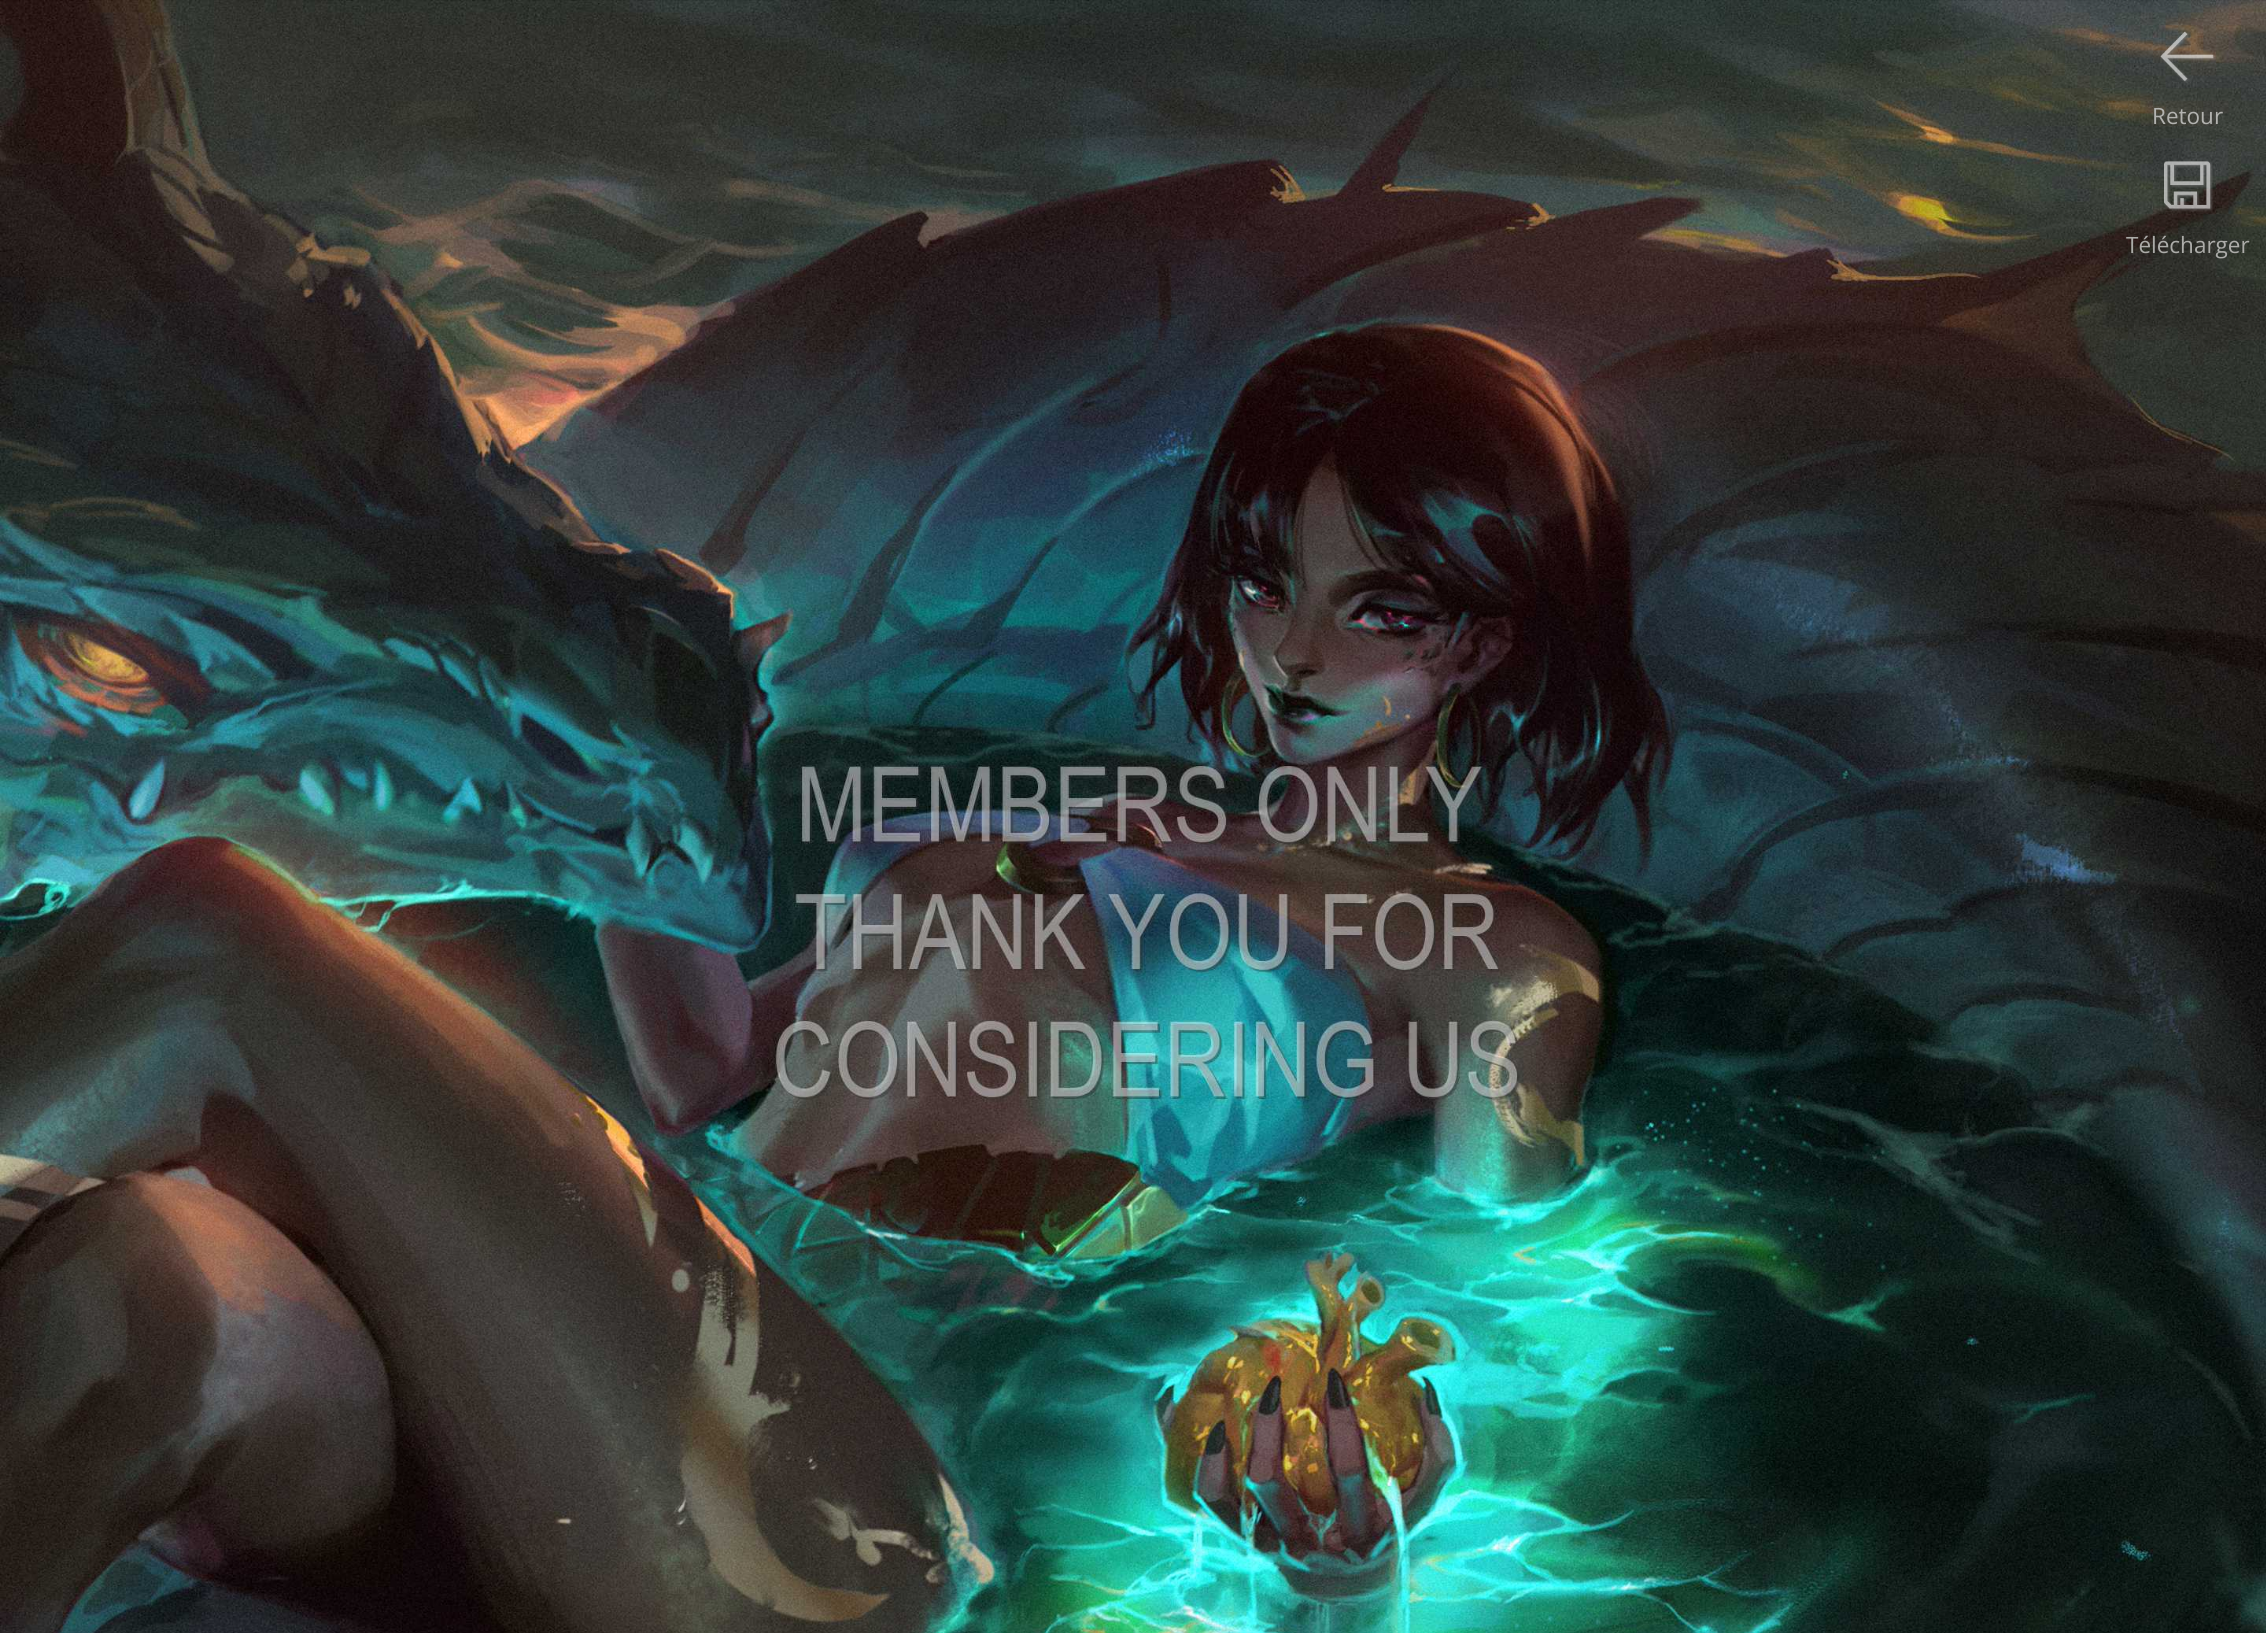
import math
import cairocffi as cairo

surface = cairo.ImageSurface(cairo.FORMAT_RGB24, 2266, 1633)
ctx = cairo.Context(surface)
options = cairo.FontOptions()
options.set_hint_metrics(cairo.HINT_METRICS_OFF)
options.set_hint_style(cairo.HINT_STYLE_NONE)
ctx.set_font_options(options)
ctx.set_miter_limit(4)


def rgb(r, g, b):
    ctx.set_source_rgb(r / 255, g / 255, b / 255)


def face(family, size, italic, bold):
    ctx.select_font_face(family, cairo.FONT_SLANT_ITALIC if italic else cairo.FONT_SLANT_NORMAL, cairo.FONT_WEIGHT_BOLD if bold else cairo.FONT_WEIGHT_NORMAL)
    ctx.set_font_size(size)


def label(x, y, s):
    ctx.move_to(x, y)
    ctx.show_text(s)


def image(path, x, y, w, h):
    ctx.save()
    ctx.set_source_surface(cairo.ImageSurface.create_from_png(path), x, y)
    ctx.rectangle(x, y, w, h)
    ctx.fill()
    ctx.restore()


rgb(255, 255, 255)
ctx.paint()
image('image0.png', 0, 0, 2266, 1633)
image('image1.png', 2160, 31, 56, 52)
face('Open Sans', 22.5, 0, 0)
rgb(179, 179, 176)
label(2152, 124, 'Retour')
image('image2.png', 2164, 161, 49, 51)
rgb(172, 172, 169)
label(2126, 253, 'Télécharger')
surface.write_to_png('render.png')
